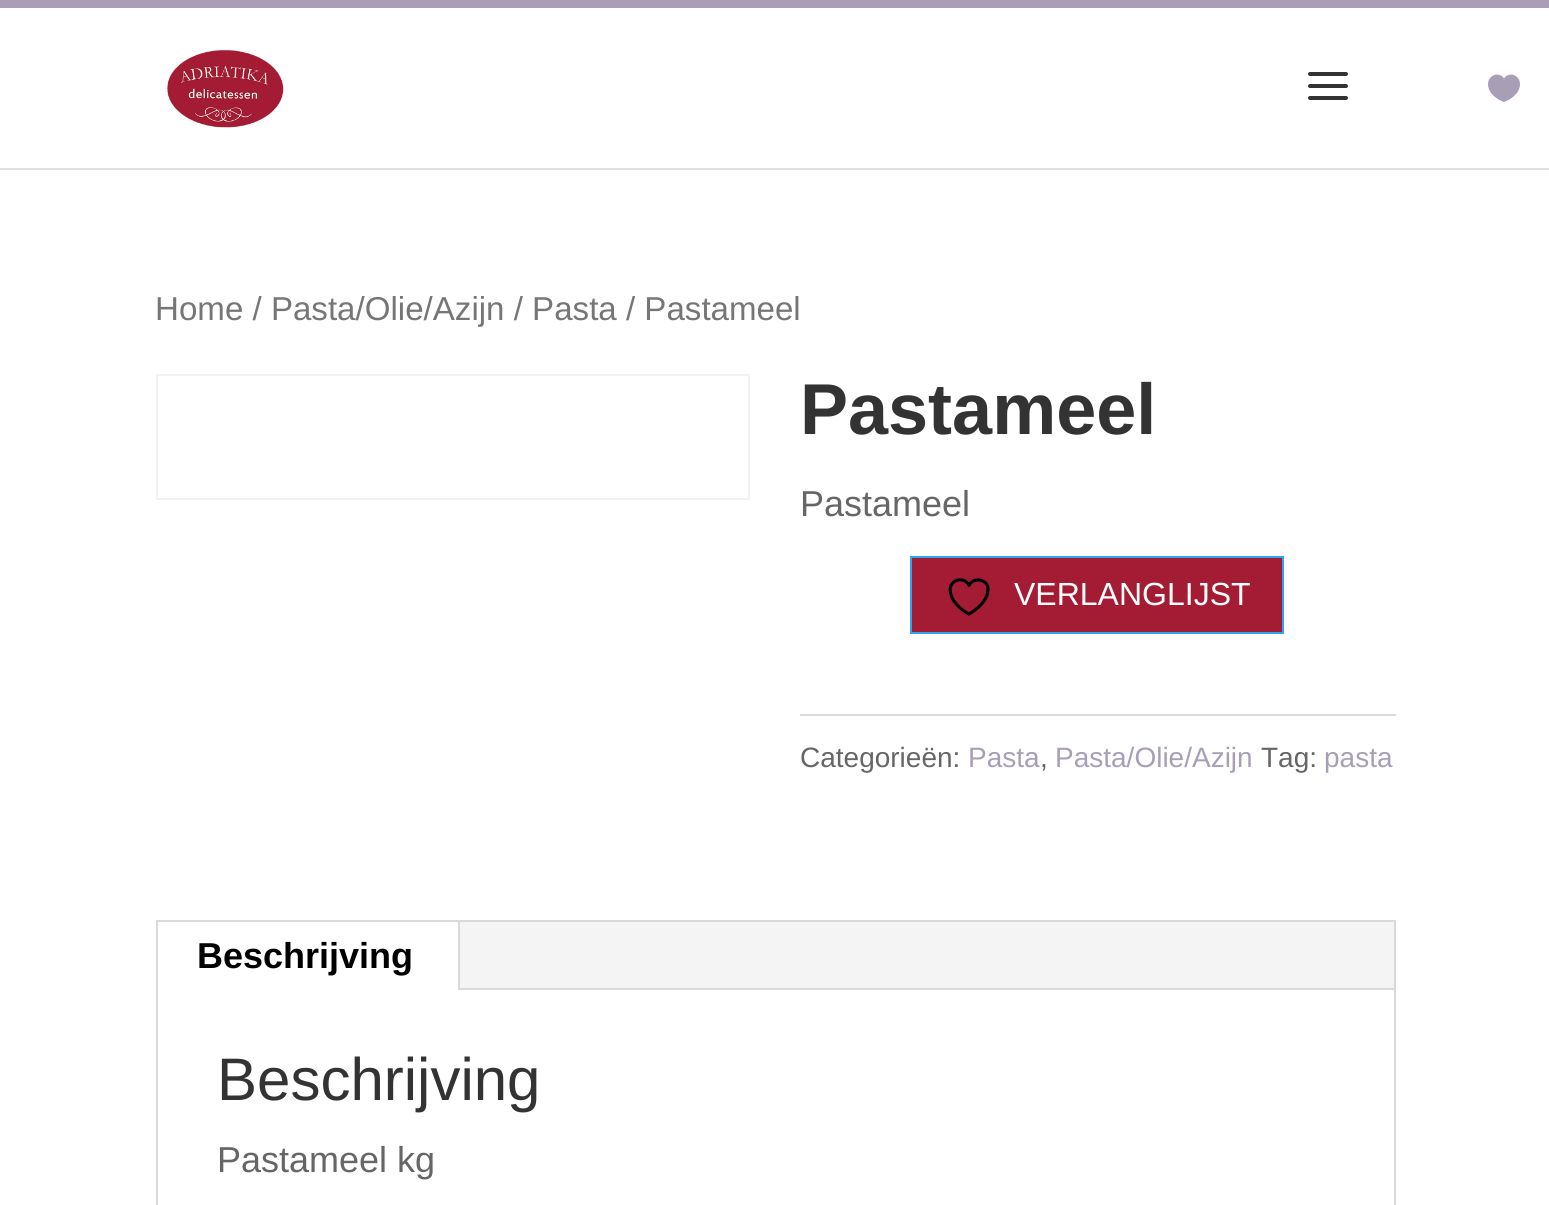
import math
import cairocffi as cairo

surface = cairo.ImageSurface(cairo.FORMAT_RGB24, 1549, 1205)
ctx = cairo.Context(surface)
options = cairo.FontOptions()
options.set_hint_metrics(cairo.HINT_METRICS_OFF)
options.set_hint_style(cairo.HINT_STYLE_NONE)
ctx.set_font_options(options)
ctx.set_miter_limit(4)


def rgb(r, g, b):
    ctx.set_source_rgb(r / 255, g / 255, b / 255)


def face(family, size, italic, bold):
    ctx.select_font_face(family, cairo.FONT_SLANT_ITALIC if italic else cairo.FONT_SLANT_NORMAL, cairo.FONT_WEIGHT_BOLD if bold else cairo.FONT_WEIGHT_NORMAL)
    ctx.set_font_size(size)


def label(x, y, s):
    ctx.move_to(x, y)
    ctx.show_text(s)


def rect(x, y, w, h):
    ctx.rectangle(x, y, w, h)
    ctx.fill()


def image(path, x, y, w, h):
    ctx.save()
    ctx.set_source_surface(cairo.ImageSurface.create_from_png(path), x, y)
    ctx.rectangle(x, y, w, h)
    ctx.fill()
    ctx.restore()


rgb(255, 255, 255)
ctx.paint()
rgb(225, 225, 225)
rect(0, 168, 1549, 2)
rgb(168, 159, 183)
rect(0, 0, 1549, 8)
image('image0.png', 167, 50, 117, 78)
image('image1.png', 1308, 72, 40, 28)
image('image2.png', 1488, 74, 32, 28)
face('Liberation Sans', 33.1, 0, 0)
rgb(118, 118, 118)
label(155, 320, 'Home / Pasta/Olie/Azijn / Pasta / Pastameel')
ctx.rectangle(157, 375, 592, 124)
rgb(242, 242, 242)
ctx.stroke()
face('Liberation Sans', 72, 0, 1)
rgb(51, 51, 51)
label(800, 434, 'Pastameel')
face('Liberation Sans', 36, 0, 0)
rgb(102, 102, 102)
label(800, 516, 'Pastameel')
rgb(164, 28, 52)
ctx.rectangle(911, 557, 372, 76)
ctx.fill_preserve()
rgb(46, 163, 242)
ctx.stroke()
ctx.new_path()
ctx.move_to(988, 589)
ctx.curve_to(988, 579, 973, 576.5, 969, 585.5)
ctx.curve_to(964, 574, 942.5, 580.5, 953, 599.5)
ctx.curve_to(956.5, 605.5, 963, 611, 969, 614)
ctx.curve_to(969, 614, 988, 604, 988, 589)
ctx.close_path()
rgb(0, 0, 0)
ctx.set_line_width(3.1)
ctx.set_line_cap(cairo.LINE_CAP_ROUND)
ctx.set_line_join(cairo.LINE_JOIN_ROUND)
ctx.stroke()
face('Liberation Sans', 32, 0, 0)
rgb(255, 255, 255)
label(1014, 605, 'VERLANGLIJST')
rgb(218, 218, 218)
rect(800, 714, 596, 2)
face('Liberation Sans', 28, 0, 0)
rgb(102, 102, 102)
label(800, 767, 'Categorieën:')
rgb(168, 159, 183)
label(968, 767, 'Pasta')
rgb(102, 102, 102)
label(1040, 767, ',')
rgb(168, 159, 183)
label(1055, 767, 'Pasta/Olie/Azijn')
rgb(102, 102, 102)
label(1261, 767, 'Tag:')
rgb(168, 159, 183)
label(1324, 767, 'pasta')
ctx.rectangle(157, 921, 1238, 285)
rgb(217, 217, 217)
ctx.set_line_width(2)
ctx.set_line_cap(cairo.LINE_CAP_BUTT)
ctx.set_line_join(cairo.LINE_JOIN_MITER)
ctx.stroke()
rgb(244, 244, 244)
rect(460, 922, 934, 66)
rgb(217, 217, 217)
rect(458, 922, 2, 68)
face('Liberation Sans', 36, 0, 1)
rgb(0, 0, 0)
label(197, 968, 'Beschrijving')
rgb(217, 217, 217)
rect(460, 988, 934, 2)
face('Liberation Sans', 60, 0, 0)
rgb(51, 51, 51)
label(217, 1100, 'Beschrijving')
face('Liberation Sans', 36, 0, 0)
rgb(102, 102, 102)
label(217, 1172, 'Pastameel kg')
surface.write_to_png('render.png')
